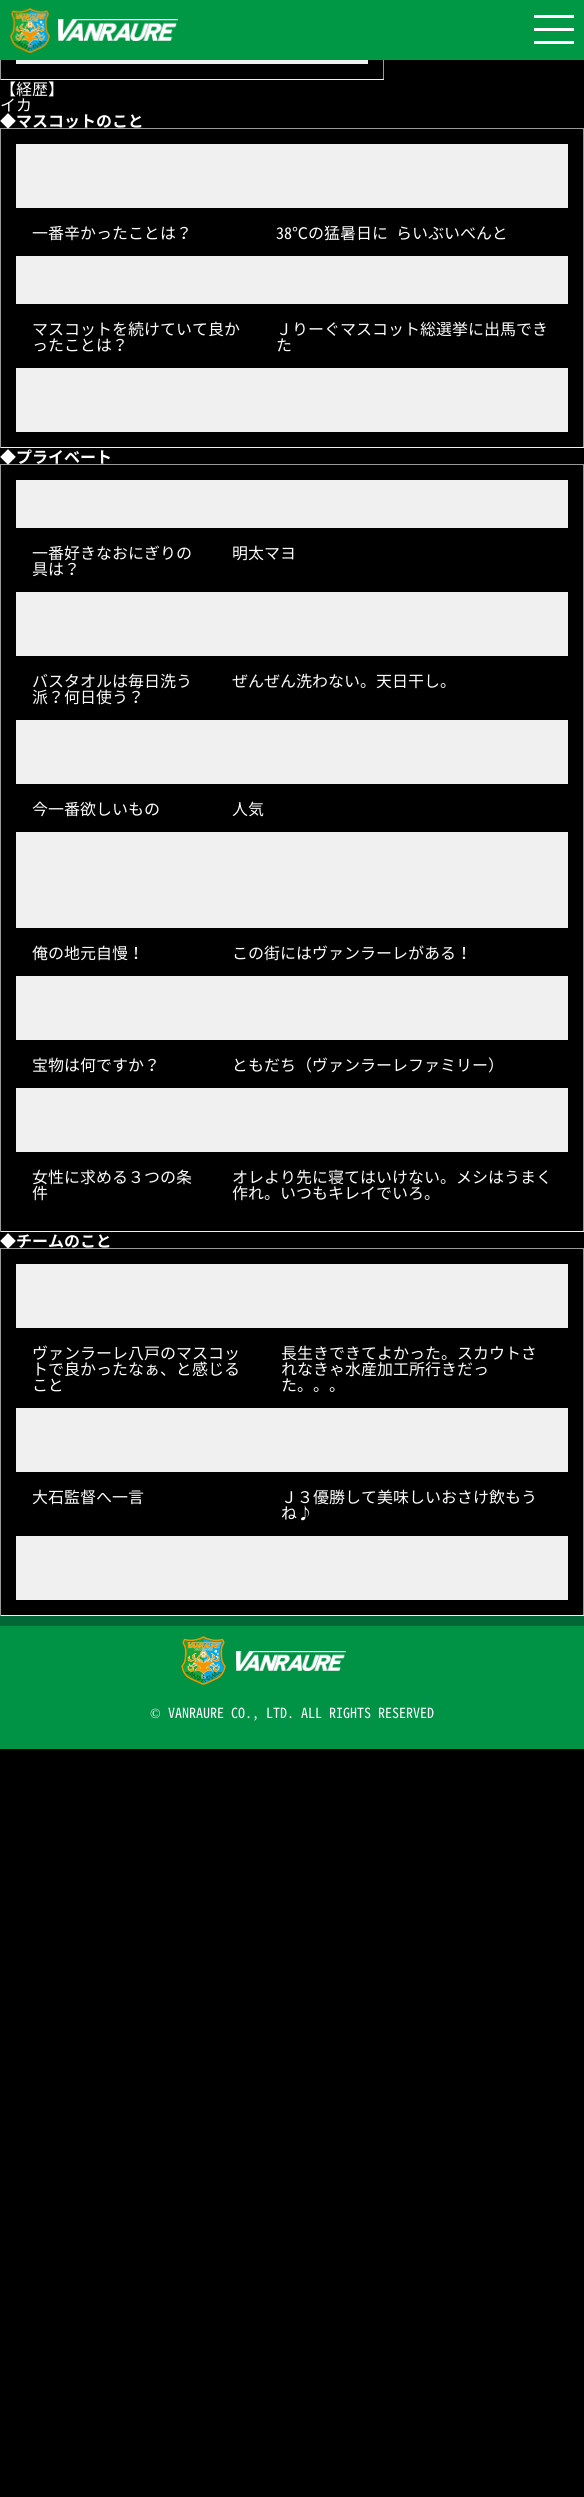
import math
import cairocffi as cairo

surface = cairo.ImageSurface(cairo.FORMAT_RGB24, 584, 2497)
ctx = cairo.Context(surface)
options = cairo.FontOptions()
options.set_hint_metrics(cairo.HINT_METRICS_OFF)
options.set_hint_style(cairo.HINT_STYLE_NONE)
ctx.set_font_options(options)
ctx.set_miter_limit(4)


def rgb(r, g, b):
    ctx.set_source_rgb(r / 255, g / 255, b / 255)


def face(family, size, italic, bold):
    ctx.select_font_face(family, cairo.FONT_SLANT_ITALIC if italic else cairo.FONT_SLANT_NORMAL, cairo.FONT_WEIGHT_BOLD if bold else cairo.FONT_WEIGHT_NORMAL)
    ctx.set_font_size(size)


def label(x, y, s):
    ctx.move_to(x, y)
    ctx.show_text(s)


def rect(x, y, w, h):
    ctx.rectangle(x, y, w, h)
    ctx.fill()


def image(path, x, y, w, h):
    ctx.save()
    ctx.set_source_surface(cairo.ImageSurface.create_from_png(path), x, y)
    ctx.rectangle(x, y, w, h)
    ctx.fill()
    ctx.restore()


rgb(0, 0, 0)
ctx.paint()
rgb(0, 152, 68)
rect(0, 0, 584, 60)
image('image0.png', 10, 8, 40, 45)
image('image1.png', 58, 19, 120, 22)
rgb(255, 255, 255)
rect(534, 15, 40, 3)
rect(534, 28, 40, 3)
rect(534, 41, 40, 3)
rgb(153, 153, 153)
rect(383, 60, 1, 20)
rgb(240, 240, 240)
rect(0, 79, 384, 1)
rgb(153, 153, 153)
rect(0, 60, 1, 20)
rgb(240, 240, 240)
rect(16, 60, 352, 4)
face('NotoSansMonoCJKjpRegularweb', 16, 0, 0)
rgb(255, 255, 255)
label(0, 95, '【経歴】')
label(0, 111, 'イカ')
rgb(153, 153, 153)
rect(0, 128, 584, 1)
rect(583, 128, 1, 320)
rgb(240, 240, 240)
rect(0, 447, 584, 1)
rgb(153, 153, 153)
rect(0, 128, 1, 320)
face('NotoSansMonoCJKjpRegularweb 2', 16, 0, 0)
rgb(255, 255, 255)
label(0, 127, '◆マスコットのこと')
rgb(240, 240, 240)
rect(16, 144, 552, 64)
face('NotoSansMonoCJKjpRegularweb', 16, 0, 0)
rgb(255, 255, 255)
label(32, 239, '一番辛かったことは？')
label(276, 239, '38℃の猛暑日に らいぶいべんと')
rgb(240, 240, 240)
rect(16, 256, 552, 48)
rgb(255, 255, 255)
label(32, 335, 'マスコットを続けていて良か')
label(32, 351, 'ったことは？')
label(276, 335, 'Ｊりーぐマスコット総選挙に出馬でき')
label(276, 351, 'た')
rgb(240, 240, 240)
rect(16, 368, 552, 64)
rgb(153, 153, 153)
rect(0, 464, 584, 1)
rect(583, 464, 1, 768)
rgb(240, 240, 240)
rect(0, 1231, 584, 1)
rgb(153, 153, 153)
rect(0, 464, 1, 768)
face('NotoSansMonoCJKjpRegularweb 2', 16, 0, 0)
rgb(255, 255, 255)
label(0, 463, '◆プライベート')
rgb(240, 240, 240)
rect(16, 480, 552, 48)
face('NotoSansMonoCJKjpRegularweb', 16, 0, 0)
rgb(255, 255, 255)
label(32, 559, '一番好きなおにぎりの')
label(32, 575, '具は？')
label(232, 559, '明太マヨ')
rgb(240, 240, 240)
rect(16, 592, 552, 64)
rgb(255, 255, 255)
label(32, 687, 'バスタオルは毎日洗う')
label(32, 703, '派？何日使う？')
label(232, 687, 'ぜんぜん洗わない。天日干し。')
rgb(240, 240, 240)
rect(16, 720, 552, 64)
rgb(255, 255, 255)
label(32, 815, '今一番欲しいもの')
label(232, 815, '人気')
rgb(240, 240, 240)
rect(16, 832, 552, 96)
rgb(255, 255, 255)
label(32, 959, '俺の地元自慢！')
label(232, 959, 'この街にはヴァンラーレがある！')
rgb(240, 240, 240)
rect(16, 976, 552, 64)
rgb(255, 255, 255)
label(32, 1071, '宝物は何ですか？')
label(232, 1071, 'ともだち（ヴァンラーレファミリー）')
rgb(240, 240, 240)
rect(16, 1088, 552, 64)
rgb(255, 255, 255)
label(32, 1183, '女性に求める３つの条')
label(32, 1199, '件')
label(232, 1183, 'オレより先に寝てはいけない。メシはうまく')
label(232, 1199, '作れ。いつもキレイでいろ。')
rgb(153, 153, 153)
rect(0, 1248, 584, 1)
rect(583, 1248, 1, 368)
rgb(240, 240, 240)
rect(0, 1615, 584, 1)
rgb(153, 153, 153)
rect(0, 1248, 1, 368)
face('NotoSansMonoCJKjpRegularweb 2', 16, 0, 0)
rgb(255, 255, 255)
label(0, 1247, '◆チームのこと')
rgb(240, 240, 240)
rect(16, 1264, 552, 64)
face('NotoSansMonoCJKjpRegularweb', 16, 0, 0)
rgb(255, 255, 255)
label(32, 1359, 'ヴァンラーレ八戸のマスコッ')
label(32, 1375, 'トで良かったなぁ、と感じる')
label(32, 1391, 'こと')
label(281, 1359, '長生きできてよかった。スカウトさ')
label(281, 1375, 'れなきゃ水産加工所行きだっ')
label(281, 1391, 'た。。。')
rgb(240, 240, 240)
rect(16, 1408, 552, 64)
rgb(255, 255, 255)
label(32, 1503, '大石監督へ一言')
label(281, 1503, 'Ｊ３優勝して美味しいおさけ飲もう')
label(281, 1519, 'ね♪')
rgb(240, 240, 240)
rect(16, 1536, 552, 64)
rgb(0, 146, 69)
rect(0, 1626, 584, 123)
rgb(0, 104, 55)
rect(0, 1616, 584, 10)
image('image2.png', 181, 1636, 45, 49)
image('image3.png', 236, 1651, 110, 20)
face('Liberation Serif', 14, 0, 0)
rgb(255, 255, 255)
label(150, 1718, '©')
face('NotoSansMonoCJKjpRegularweb', 14, 0, 0)
label(168, 1718, 'VANRAURE CO., LTD. ALL RIGHTS RESERVED')
surface.write_to_png('render.png')
